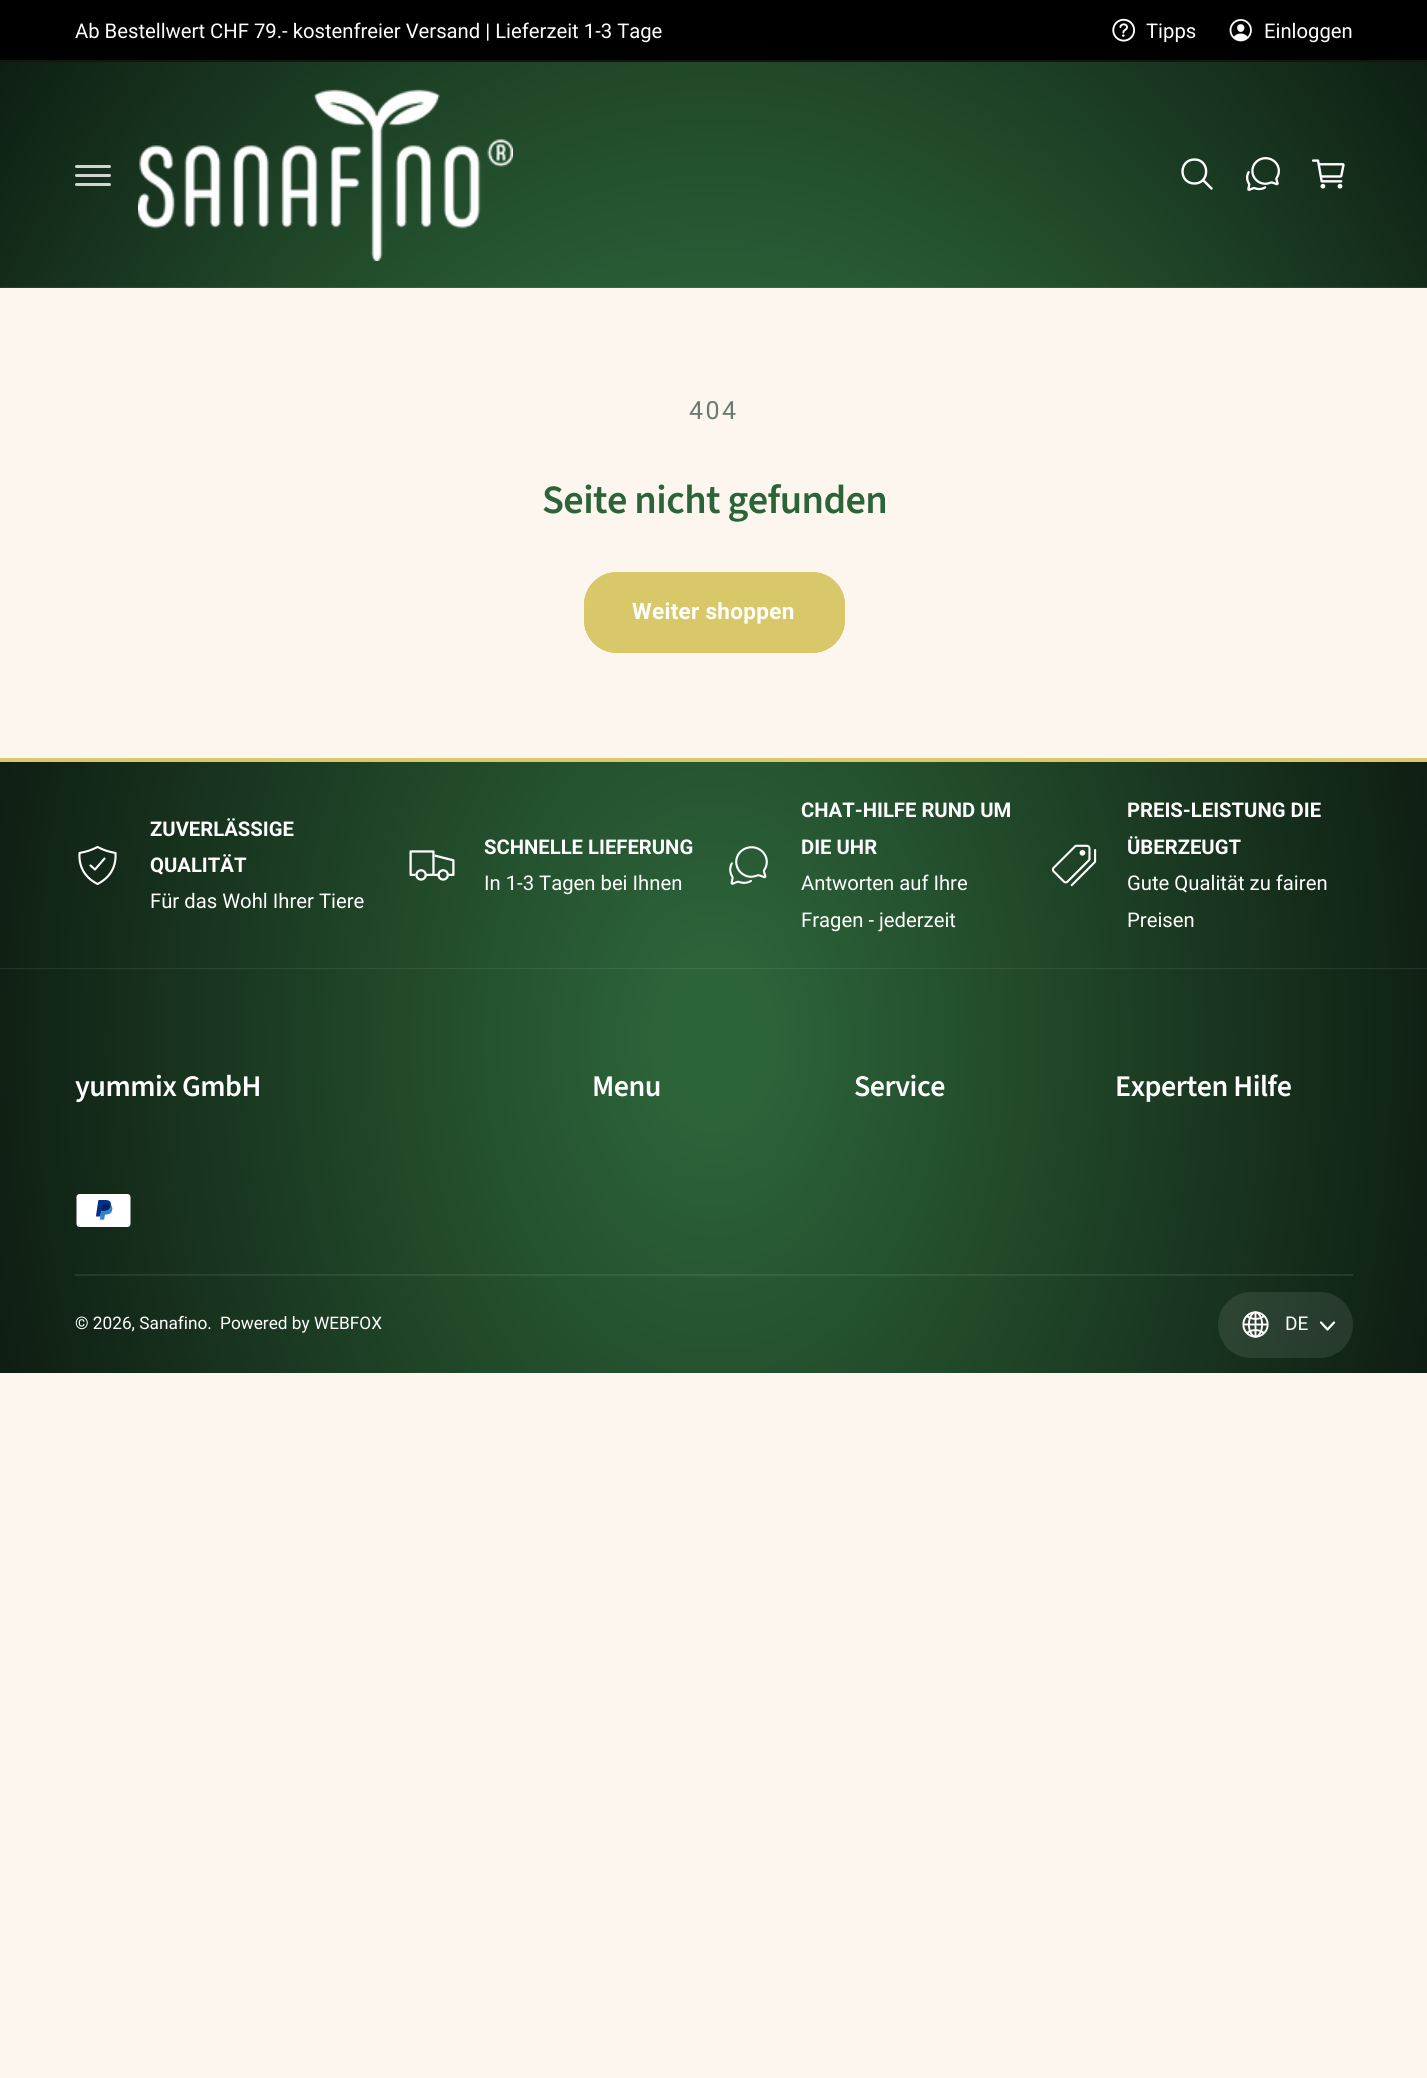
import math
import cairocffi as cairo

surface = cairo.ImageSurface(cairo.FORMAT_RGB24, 1427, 2078)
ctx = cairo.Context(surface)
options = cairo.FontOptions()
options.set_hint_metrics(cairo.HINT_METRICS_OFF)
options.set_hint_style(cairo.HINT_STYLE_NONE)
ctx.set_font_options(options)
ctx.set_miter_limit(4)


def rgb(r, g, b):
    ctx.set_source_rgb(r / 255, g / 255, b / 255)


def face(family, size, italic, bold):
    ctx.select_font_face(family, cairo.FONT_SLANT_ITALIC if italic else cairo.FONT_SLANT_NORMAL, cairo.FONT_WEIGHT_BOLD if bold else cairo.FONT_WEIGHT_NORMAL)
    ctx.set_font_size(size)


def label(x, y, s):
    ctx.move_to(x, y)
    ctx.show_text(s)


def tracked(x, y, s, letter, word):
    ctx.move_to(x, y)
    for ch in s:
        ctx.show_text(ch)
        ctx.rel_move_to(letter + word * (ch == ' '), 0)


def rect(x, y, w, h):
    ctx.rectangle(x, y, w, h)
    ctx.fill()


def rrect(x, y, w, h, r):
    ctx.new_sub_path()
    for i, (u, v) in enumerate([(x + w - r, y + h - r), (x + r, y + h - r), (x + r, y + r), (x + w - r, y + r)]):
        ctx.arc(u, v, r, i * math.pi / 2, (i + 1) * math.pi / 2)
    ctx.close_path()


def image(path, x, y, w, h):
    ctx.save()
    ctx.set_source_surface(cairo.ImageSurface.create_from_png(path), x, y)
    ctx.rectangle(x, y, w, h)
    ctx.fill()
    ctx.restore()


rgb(252, 246, 239)
ctx.paint()
gradient = cairo.LinearGradient(714, 0, 714, 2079)
gradient.add_color_stop_rgba(0.16, 0, 0, 0, 1)
gradient.add_color_stop_rgba(0.55, 0.192, 0.192, 0.192, 1)
gradient.add_color_stop_rgba(1, 0.231, 0.247, 0.227, 1)
ctx.set_source(gradient)
rect(0, 0, 1427, 60)
rgb(20, 20, 20)
rect(0, 60, 1427, 2)
face('Roboto', 20.25, 0, 0)
rgb(255, 255, 255)
label(75, 38, 'Ab Bestellwert CHF 79.- kostenfreier Versand | Lieferzeit 1-3 Tage')
image('image0.png', 1112, 18, 24, 24)
label(1146, 38, 'Tipps')
image('image1.png', 1229, 19, 23, 23)
label(1264, 38, 'Einloggen')
gradient = cairo.RadialGradient(0, 0, 0, 0, 0, 1)
gradient.set_matrix(cairo.Matrix(1 / 1010, 0, 0, 1 / 1470, -1 * 714 / 1010, -1 * 1040 / 1470))
gradient.add_color_stop_rgba(0.46, 0.173, 0.392, 0.224, 1)
gradient.add_color_stop_rgba(1, 0.047, 0.102, 0.063, 1)
ctx.set_source(gradient)
rect(0, 62, 1427, 225)
gradient = cairo.RadialGradient(0, 0, 0, 0, 0, 1)
gradient.set_matrix(cairo.Matrix(1 / 1010, 0, 0, 1 / 1470, -1 * 714 / 1010, -1 * 1040 / 1470))
gradient.add_color_stop_rgba(0.46, 0.239, 0.439, 0.286, 1)
gradient.add_color_stop_rgba(1, 0.122, 0.173, 0.137, 1)
ctx.set_source(gradient)
rect(0, 287, 1427, 1)
ctx.new_path()
ctx.move_to(76.5, 166.5)
ctx.line_to(109.5, 166.5)
ctx.move_to(76.5, 175.5)
ctx.line_to(109.5, 175.5)
ctx.move_to(76.5, 184.5)
ctx.line_to(109.5, 184.5)
ctx.set_source_rgba(1, 1, 1, 0.8)
ctx.set_line_width(3)
ctx.set_line_cap(cairo.LINE_CAP_ROUND)
ctx.stroke()
image('image2.png', 138, 89, 375, 172)
ctx.new_path()
ctx.move_to(1194.5, 159.5)
ctx.curve_to(1178.5, 159.5, 1178.5, 183.5, 1194.5, 183.5)
ctx.curve_to(1210, 183.5, 1210, 159.5, 1194.5, 159.5)
ctx.close_path()
rgb(255, 255, 255)
ctx.set_line_width(2.4)
ctx.set_line_cap(cairo.LINE_CAP_BUTT)
ctx.stroke()
ctx.new_path()
ctx.move_to(1203.5, 180.5)
ctx.line_to(1211.5, 188.5)
ctx.set_line_cap(cairo.LINE_CAP_ROUND)
ctx.stroke()
image('image3.png', 1246, 157, 34, 34)
image('image4.png', 1312, 159, 33, 30)
face('Roboto', 25, 0, 0)
rgb(106, 123, 114)
tracked(689, 419, '404', 2.5, 0)
face('Source Sans Pro SemiBold', 40.25, 0, 0)
rgb(44, 100, 57)
tracked(542, 513, 'Seite nicht gefunden', -0.6, 0)
rgb(217, 200, 106)
rrect(584, 572, 261, 81, 33)
ctx.fill()
rrect(585.5, 573.5, 258, 78, 31.5)
ctx.set_line_width(3)
ctx.set_line_cap(cairo.LINE_CAP_BUTT)
ctx.stroke()
face('Roboto', 22.5, 0, 1)
rgb(255, 255, 255)
tracked(632, 619, 'Weiter shoppen', 0.3, 0)
rgb(217, 200, 106)
rect(0, 758, 1427, 4)
gradient = cairo.RadialGradient(0, 0, 0, 0, 0, 1)
gradient.set_matrix(cairo.Matrix(1 / 1010, 0, 0, 1 / 1470, -1 * 714 / 1010, -1 * 1040 / 1470))
gradient.add_color_stop_rgba(0.05, 0.173, 0.392, 0.224, 1)
gradient.add_color_stop_rgba(0.99, 0.016, 0.016, 0.016, 1)
gradient.add_color_stop_rgba(1, 0.843, 0.8, 0.98, 1)
ctx.set_source(gradient)
rect(0, 762, 1427, 206)
gradient = cairo.RadialGradient(0, 0, 0, 0, 0, 1)
gradient.set_matrix(cairo.Matrix(1 / 1010, 0, 0, 1 / 1470, -1 * 714 / 1010, -1 * 1040 / 1470))
gradient.add_color_stop_rgba(0.05, 0.239, 0.439, 0.286, 1)
gradient.add_color_stop_rgba(0.99, 0.094, 0.094, 0.094, 1)
gradient.add_color_stop_rgba(1, 0.855, 0.816, 0.98, 1)
ctx.set_source(gradient)
rect(0, 968, 1427, 1)
ctx.new_path()
ctx.move_to(104.5, 858.5)
ctx.line_to(95, 869.5)
ctx.line_to(90.5, 865.5)
ctx.move_to(115.5, 853)
ctx.curve_to(108, 851.5, 104.5, 850.5, 97.5, 847)
ctx.curve_to(90.5, 850.5, 87, 851.5, 79.5, 853)
ctx.curve_to(78, 875.5, 96, 883, 97.5, 884)
ctx.curve_to(99, 883, 117, 875.5, 115.5, 853)
ctx.close_path()
rgb(255, 255, 255)
ctx.set_line_width(2.1)
ctx.set_line_cap(cairo.LINE_CAP_ROUND)
ctx.set_line_join(cairo.LINE_JOIN_ROUND)
ctx.stroke()
face('Roboto', 20.25, 0, 1)
label(150, 836, 'ZUVERLÄSSIGE')
label(150, 872, 'QUALITÄT')
face('Roboto', 20.25, 0, 0)
label(150, 908, 'Für das Wohl Ihrer Tiere')
image('image5.png', 409, 850, 46, 31)
face('Roboto', 20.25, 0, 1)
label(484, 854, 'SCHNELLE LIEFERUNG')
face('Roboto', 20.25, 0, 0)
label(484, 890, 'In 1-3 Tagen bei Ihnen')
image('image6.png', 729, 846, 39, 39)
face('Roboto', 20.25, 0, 1)
label(801, 817, 'CHAT-HILFE RUND UM')
label(801, 854, 'DIE UHR')
face('Roboto', 20.25, 0, 0)
label(801, 890, 'Antworten auf Ihre')
label(801, 927, 'Fragen - jederzeit')
image('image7.png', 1051, 844, 46, 43)
face('Roboto', 20.25, 0, 1)
label(1127, 817, 'PREIS-LEISTUNG DIE')
label(1127, 854, 'ÜBERZEUGT')
face('Roboto', 20.25, 0, 0)
label(1127, 890, 'Gute Qualität zu fairen')
label(1127, 927, 'Preisen')
gradient = cairo.RadialGradient(0, 0, 0, 0, 0, 1)
gradient.set_matrix(cairo.Matrix(1 / 1010, 0, 0, 1 / 1470, -1 * 714 / 1010, -1 * 1040 / 1470))
gradient.add_color_stop_rgba(0.05, 0.173, 0.392, 0.224, 1)
gradient.add_color_stop_rgba(0.99, 0.016, 0.016, 0.016, 1)
gradient.add_color_stop_rgba(1, 0.843, 0.8, 0.98, 1)
ctx.set_source(gradient)
rect(0, 969, 1427, 305)
face('Source Sans Pro SemiBold', 30, 0, 0)
rgb(255, 255, 255)
tracked(75, 1096, 'yummix GmbH', -0.5, 0)
tracked(592, 1096, 'Menu', -0.5, 0)
tracked(854, 1096, 'Service', -0.5, 0)
tracked(1115, 1096, 'Experten Hilfe', -0.5, 0)
image('image8.png', 76, 1194, 55, 33)
gradient = cairo.RadialGradient(0, 0, 0, 0, 0, 1)
gradient.set_matrix(cairo.Matrix(1 / 1010, 0, 0, 1 / 1470, -1 * 714 / 1010, -1 * 1040 / 1470))
gradient.add_color_stop_rgba(0.05, 0.173, 0.392, 0.224, 1)
gradient.add_color_stop_rgba(0.99, 0.016, 0.016, 0.016, 1)
gradient.add_color_stop_rgba(1, 0.843, 0.8, 0.98, 1)
ctx.set_source(gradient)
rect(0, 1274, 1427, 99)
gradient = cairo.RadialGradient(0, 0, 0, 0, 0, 1)
gradient.set_matrix(cairo.Matrix(1 / 1010, 0, 0, 1 / 1470, -1 * 714 / 1010, -1 * 1040 / 1470))
gradient.add_color_stop_rgba(0.05, 0.239, 0.439, 0.286, 1)
gradient.add_color_stop_rgba(0.99, 0.094, 0.094, 0.094, 1)
gradient.add_color_stop_rgba(1, 0.855, 0.816, 0.98, 1)
ctx.set_source(gradient)
rect(75, 1274, 1278, 2)
face('Roboto', 17.25, 0, 0)
rgb(255, 255, 255)
label(75, 1329, '© 2026, Sanafino.')
label(220, 1329, 'Powered by WEBFOX')
ctx.set_source_rgba(1, 1, 1, 0.09)
rrect(1218, 1292, 135, 66, 33)
ctx.fill()
image('image9.png', 1242, 1311, 27, 27)
face('Roboto', 19, 0, 0)
rgb(255, 255, 255)
label(1285, 1330, 'DE')
ctx.new_path()
ctx.move_to(1321, 1322.5)
ctx.line_to(1327.5, 1329.5)
ctx.line_to(1334, 1322.5)
ctx.set_line_width(2.2)
ctx.stroke()
surface.write_to_png('render.png')
